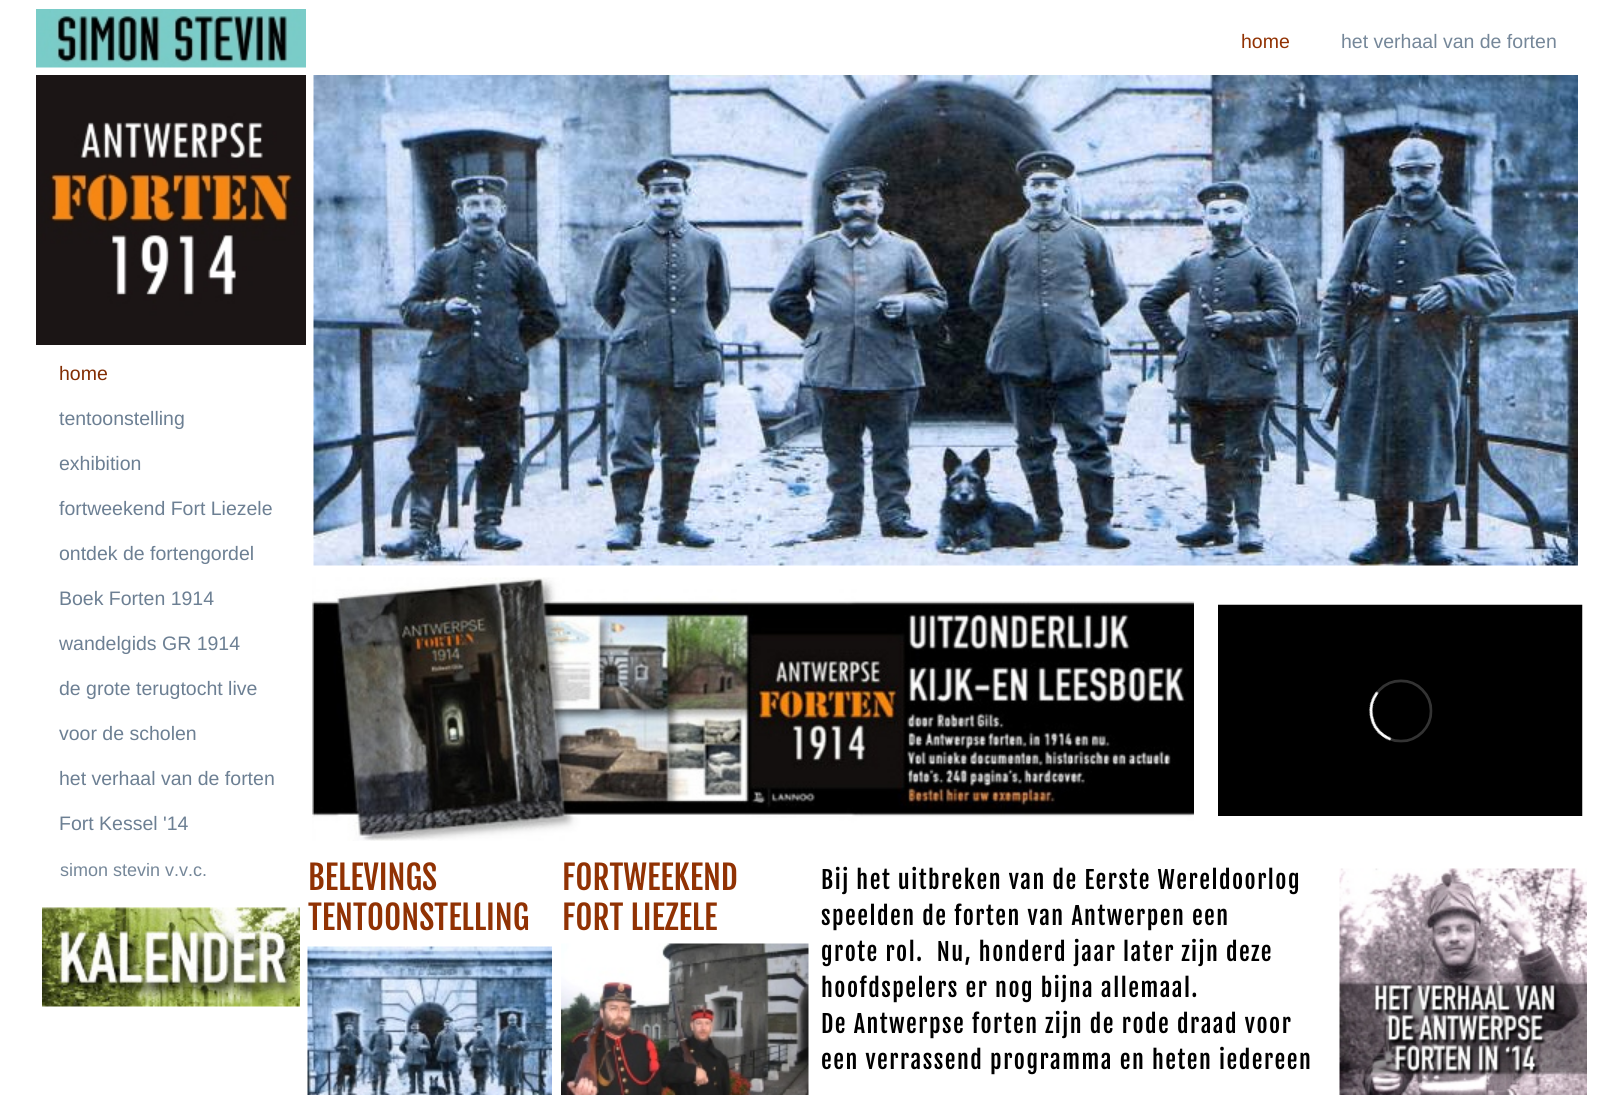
import math
import cairocffi as cairo

surface = cairo.ImageSurface(cairo.FORMAT_RGB24, 1618, 1095)
ctx = cairo.Context(surface)
options = cairo.FontOptions()
options.set_hint_metrics(cairo.HINT_METRICS_OFF)
options.set_hint_style(cairo.HINT_STYLE_NONE)
ctx.set_font_options(options)
ctx.set_miter_limit(4)


def rgb(r, g, b):
    ctx.set_source_rgb(r / 255, g / 255, b / 255)


def face(family, size, italic, bold):
    ctx.select_font_face(family, cairo.FONT_SLANT_ITALIC if italic else cairo.FONT_SLANT_NORMAL, cairo.FONT_WEIGHT_BOLD if bold else cairo.FONT_WEIGHT_NORMAL)
    ctx.set_font_size(size)


def label(x, y, s):
    ctx.move_to(x, y)
    ctx.show_text(s)


def tracked(x, y, s, letter, word):
    ctx.move_to(x, y)
    for ch in s:
        ctx.show_text(ch)
        ctx.rel_move_to(letter + word * (ch == ' '), 0)


def image(path, x, y, w, h):
    ctx.save()
    ctx.set_source_surface(cairo.ImageSurface.create_from_png(path), x, y)
    ctx.rectangle(x, y, w, h)
    ctx.fill()
    ctx.restore()


rgb(255, 255, 255)
ctx.paint()
image('image0.png', 36, 9, 270, 59)
face('Liberation Sans', 19.5, 0, 0)
rgb(145, 50, 3)
label(1241, 48, 'home')
rgb(117, 135, 153)
label(1341, 48, 'het verhaal van de forten')
image('image1.png', 36, 75, 270, 270)
rgb(130, 45, 3)
label(59, 380, 'home')
rgb(108, 127, 147)
label(59, 425, 'tentoonstelling')
label(59, 470, 'exhibition')
label(59, 515, 'fortweekend Fort Liezele')
label(59, 560, 'ontdek de fortengordel')
label(59, 605, 'Boek Forten 1914')
label(59, 650, 'wandelgids GR 1914')
label(59, 695, 'de grote terugtocht live')
label(59, 740, 'voor de scholen')
label(59, 785, 'het verhaal van de forten')
label(59, 830, 'Fort Kessel \'14')
face('Liberation Sans', 18, 0, 0)
rgb(117, 135, 153)
label(60, 876, 'simon stevin v.v.c.')
image('image2.png', 42, 907, 258, 100)
image('image3.png', 313, 75, 1265, 491)
image('image4.png', 312, 577, 882, 264)
image('image5.png', 1218, 604, 365, 212)
face('Fjalla One', 33, 0, 0)
rgb(145, 50, 3)
label(308, 890, 'BELEVINGS')
label(308, 930, 'TENTOONSTELLING')
label(562, 890, 'FORTWEEKEND')
label(562, 930, 'FORT LIEZELE')
image('image6.png', 307, 946, 245, 149)
image('image7.png', 561, 943, 248, 152)
face('Fjalla One', 24, 0, 0)
rgb(0, 0, 0)
tracked(821, 889, 'Bij het uitbreken van de Eerste Wereldoorlog', 1.5, 0)
tracked(821, 925, 'speelden de forten van Antwerpen een', 1.5, 0)
tracked(821, 961, 'grote rol.  Nu, honderd jaar later zijn deze', 1.5, 0)
tracked(821, 997, 'hoofdspelers er nog bijna allemaal.', 1.5, 0)
tracked(821, 1033, 'De Antwerpse forten zijn de rode draad voor', 1.5, 0)
tracked(821, 1069, 'een verrassend programma en heten iedereen', 1.5, 0)
image('image8.png', 1339, 868, 248, 227)
surface.write_to_png('render.png')
